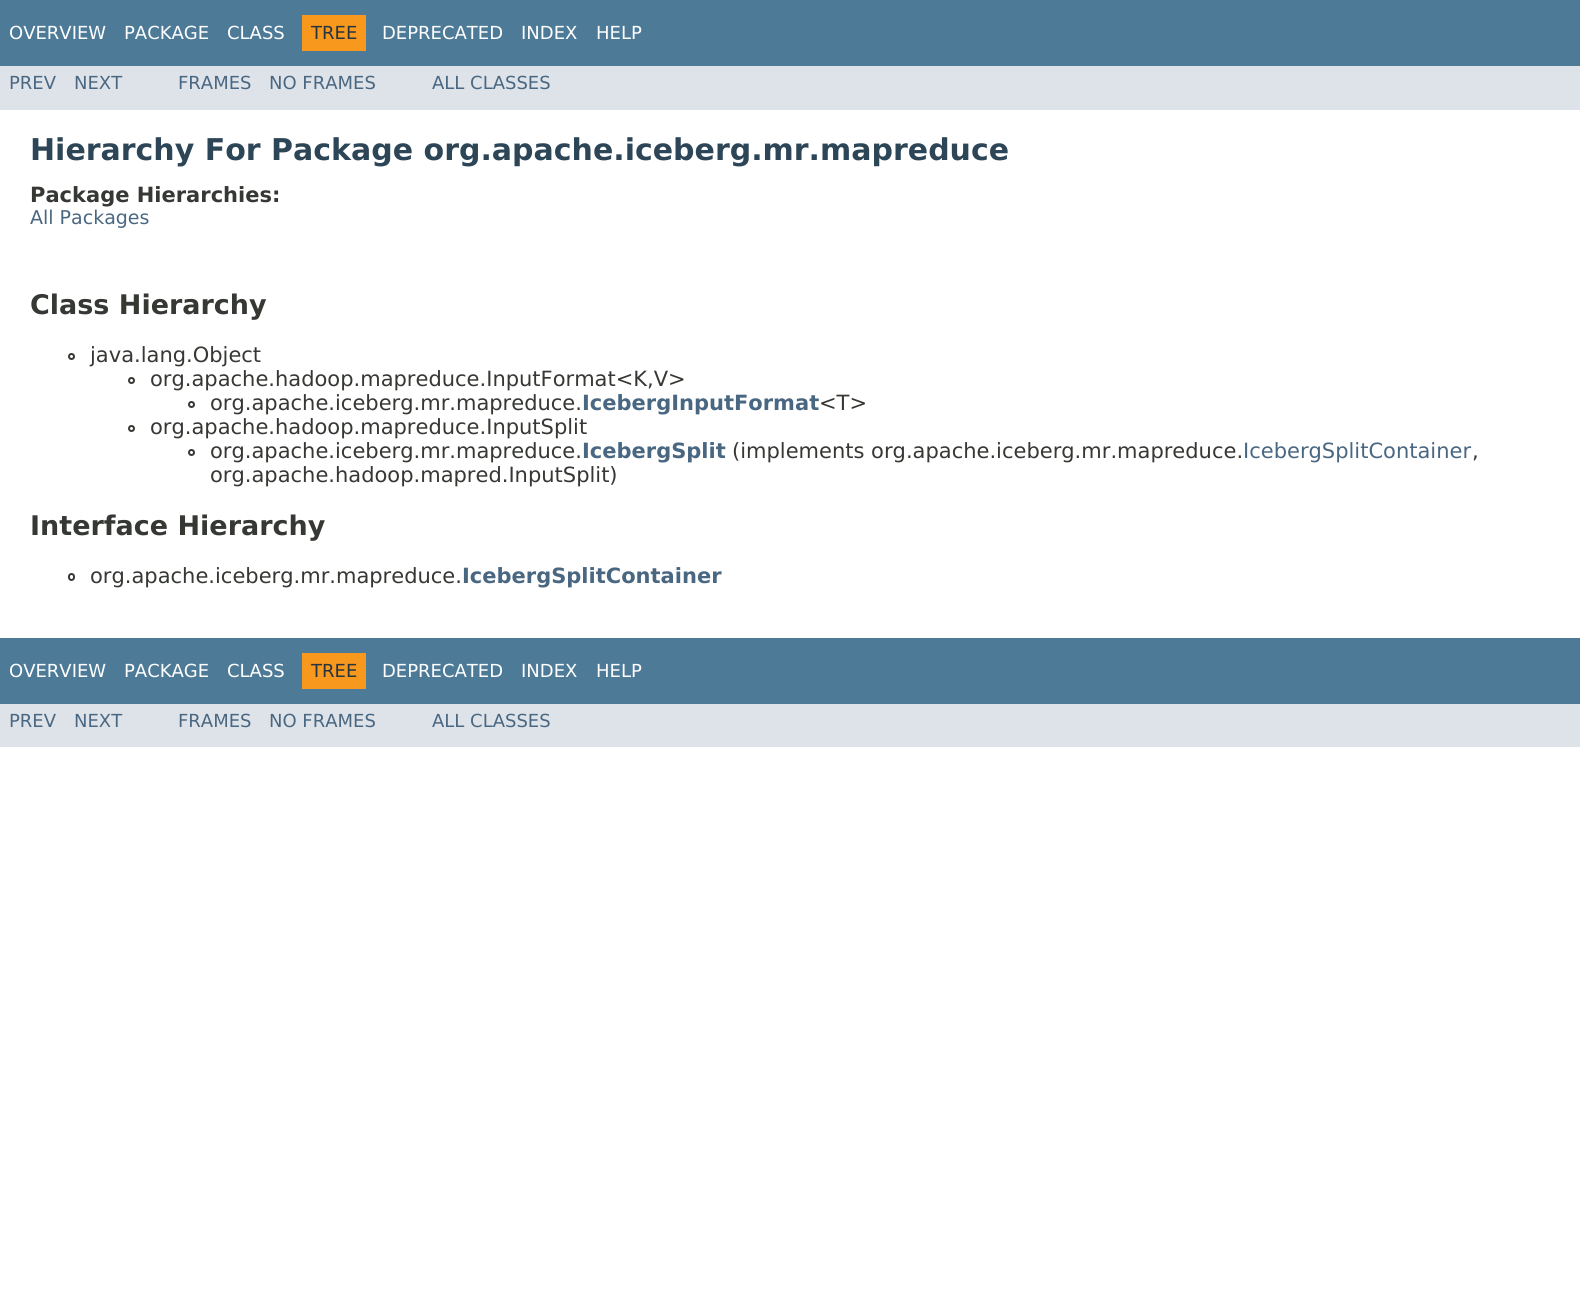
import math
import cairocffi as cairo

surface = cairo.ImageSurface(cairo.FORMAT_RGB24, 1580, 1289)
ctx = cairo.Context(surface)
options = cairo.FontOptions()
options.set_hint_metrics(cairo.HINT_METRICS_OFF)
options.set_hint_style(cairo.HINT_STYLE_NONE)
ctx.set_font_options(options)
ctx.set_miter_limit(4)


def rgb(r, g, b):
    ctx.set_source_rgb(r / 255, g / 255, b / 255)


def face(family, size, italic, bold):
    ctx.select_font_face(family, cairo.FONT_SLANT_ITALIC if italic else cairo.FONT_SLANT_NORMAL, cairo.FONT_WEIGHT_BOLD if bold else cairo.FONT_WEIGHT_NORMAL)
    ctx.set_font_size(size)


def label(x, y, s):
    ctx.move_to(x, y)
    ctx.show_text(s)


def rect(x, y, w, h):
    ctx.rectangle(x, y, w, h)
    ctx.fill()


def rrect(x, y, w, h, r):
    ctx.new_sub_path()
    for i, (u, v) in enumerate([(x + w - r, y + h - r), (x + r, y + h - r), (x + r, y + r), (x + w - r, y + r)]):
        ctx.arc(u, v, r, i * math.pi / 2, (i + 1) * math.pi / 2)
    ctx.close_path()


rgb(255, 255, 255)
ctx.paint()
rgb(77, 122, 151)
rect(0, 0, 1580, 66)
face('DejaVu Sans', 18, 0, 0)
rgb(255, 255, 255)
label(9, 39, 'OVERVIEW')
label(124, 39, 'PACKAGE')
label(227, 39, 'CLASS')
rgb(248, 152, 29)
rect(302, 15, 64, 36)
rgb(37, 52, 65)
label(311, 39, 'TREE')
rgb(255, 255, 255)
label(382, 39, 'DEPRECATED')
label(521, 39, 'INDEX')
label(596, 39, 'HELP')
rgb(222, 227, 233)
rect(0, 66, 1580, 44)
rgb(74, 103, 130)
label(9, 89, 'PREV')
label(74, 89, 'NEXT')
label(178, 89, 'FRAMES')
label(269, 89, 'NO FRAMES')
label(432, 89, 'ALL CLASSES')
face('DejaVu Sans', 30, 0, 1)
rgb(44, 69, 87)
label(30, 160, 'Hierarchy For Package org.apache.iceberg.mr.mapreduce')
face('DejaVu Sans', 21, 0, 1)
rgb(53, 56, 51)
label(30, 202, 'Package Hierarchies:')
face('DejaVu Sans', 19, 0, 0)
rgb(74, 103, 130)
label(30, 224, 'All Packages')
face('DejaVu Sans', 27, 0, 1)
rgb(53, 56, 51)
label(30, 314, 'Class Hierarchy')
ctx.new_path()
ctx.arc(71.5, 356.5, 2.5, 0, 2 * math.pi)
ctx.stroke()
face('DejaVu Sans', 21, 0, 0)
label(90, 362, 'java.lang.Object')
ctx.new_path()
ctx.arc(131.5, 380.5, 2.5, 0, 2 * math.pi)
ctx.stroke()
label(150, 386, 'org.apache.hadoop.mapreduce.InputFormat<K,V>')
ctx.new_path()
ctx.arc(191.5, 404.5, 2.5, 0, 2 * math.pi)
ctx.stroke()
label(210, 410, 'org.apache.iceberg.mr.mapreduce.')
face('DejaVu Sans', 21, 0, 1)
rgb(74, 103, 130)
label(582, 410, 'IcebergInputFormat')
face('DejaVu Sans', 21, 0, 0)
rgb(53, 56, 51)
label(819, 410, '<T>')
ctx.new_path()
ctx.arc(131.5, 428.5, 2.5, 0, 2 * math.pi)
ctx.stroke()
label(150, 434, 'org.apache.hadoop.mapreduce.InputSplit')
ctx.new_path()
ctx.arc(191.5, 452.5, 2.5, 0, 2 * math.pi)
ctx.stroke()
label(210, 458, 'org.apache.iceberg.mr.mapreduce.')
face('DejaVu Sans', 21, 0, 1)
rgb(74, 103, 130)
label(582, 458, 'IcebergSplit')
face('DejaVu Sans', 21, 0, 0)
rgb(53, 56, 51)
label(732, 458, '(implements org.apache.iceberg.mr.mapreduce.')
rgb(74, 103, 130)
label(1243, 458, 'IcebergSplitContainer')
rgb(53, 56, 51)
label(1472, 458, ',')
label(210, 482, 'org.apache.hadoop.mapred.InputSplit)')
face('DejaVu Sans', 27, 0, 1)
label(30, 535, 'Interface Hierarchy')
rrect(69, 574, 5, 6, 2.5)
ctx.stroke()
face('DejaVu Sans', 21, 0, 0)
label(90, 583, 'org.apache.iceberg.mr.mapreduce.')
face('DejaVu Sans', 21, 0, 1)
rgb(74, 103, 130)
label(462, 583, 'IcebergSplitContainer')
rgb(77, 122, 151)
rect(0, 638, 1580, 66)
face('DejaVu Sans', 18, 0, 0)
rgb(255, 255, 255)
label(9, 677, 'OVERVIEW')
label(124, 677, 'PACKAGE')
label(227, 677, 'CLASS')
rgb(248, 152, 29)
rect(302, 653, 64, 36)
rgb(37, 52, 65)
label(311, 677, 'TREE')
rgb(255, 255, 255)
label(382, 677, 'DEPRECATED')
label(521, 677, 'INDEX')
label(596, 677, 'HELP')
rgb(222, 227, 233)
rect(0, 704, 1580, 43)
rgb(74, 103, 130)
label(9, 727, 'PREV')
label(74, 727, 'NEXT')
label(178, 727, 'FRAMES')
label(269, 727, 'NO FRAMES')
label(432, 727, 'ALL CLASSES')
surface.write_to_png('render.png')
